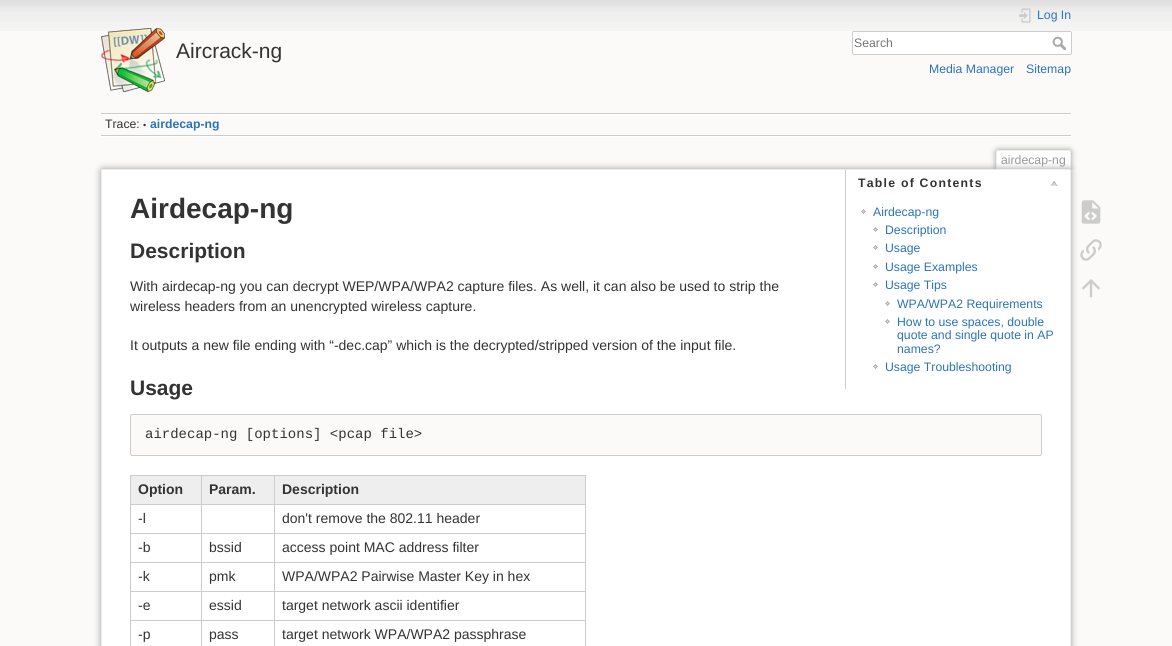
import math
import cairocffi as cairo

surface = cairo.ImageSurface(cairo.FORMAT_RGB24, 1172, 646)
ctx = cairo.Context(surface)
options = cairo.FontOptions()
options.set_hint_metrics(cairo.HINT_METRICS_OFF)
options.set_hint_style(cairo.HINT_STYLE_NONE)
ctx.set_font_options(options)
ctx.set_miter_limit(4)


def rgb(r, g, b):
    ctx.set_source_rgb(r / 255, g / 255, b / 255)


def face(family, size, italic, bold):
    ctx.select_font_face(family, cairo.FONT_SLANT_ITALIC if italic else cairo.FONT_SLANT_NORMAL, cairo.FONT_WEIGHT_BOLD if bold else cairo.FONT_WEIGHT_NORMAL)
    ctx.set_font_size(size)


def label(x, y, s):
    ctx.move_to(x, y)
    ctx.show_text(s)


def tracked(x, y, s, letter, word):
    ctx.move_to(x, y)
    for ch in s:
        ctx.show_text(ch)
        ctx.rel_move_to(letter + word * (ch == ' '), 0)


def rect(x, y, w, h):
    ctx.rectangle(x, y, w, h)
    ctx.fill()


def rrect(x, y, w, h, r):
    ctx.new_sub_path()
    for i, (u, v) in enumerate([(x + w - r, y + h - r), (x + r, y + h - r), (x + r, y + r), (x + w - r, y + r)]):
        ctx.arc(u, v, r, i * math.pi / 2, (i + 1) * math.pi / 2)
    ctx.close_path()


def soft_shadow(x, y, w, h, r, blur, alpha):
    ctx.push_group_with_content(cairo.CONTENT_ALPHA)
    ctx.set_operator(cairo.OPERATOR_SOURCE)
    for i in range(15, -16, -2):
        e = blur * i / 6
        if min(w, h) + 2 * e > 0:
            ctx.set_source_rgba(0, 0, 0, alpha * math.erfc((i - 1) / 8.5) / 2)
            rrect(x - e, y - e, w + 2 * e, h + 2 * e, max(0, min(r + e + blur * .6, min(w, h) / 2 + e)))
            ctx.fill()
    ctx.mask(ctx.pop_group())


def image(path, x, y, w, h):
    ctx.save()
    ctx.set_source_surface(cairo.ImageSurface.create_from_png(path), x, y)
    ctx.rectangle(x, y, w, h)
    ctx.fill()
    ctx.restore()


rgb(251, 250, 249)
ctx.paint()
image('image0.png', 0, 0, 1172, 31)
image('image1.png', 101, 28, 64, 64)
face('Liberation Sans', 21, 0, 0)
rgb(51, 51, 51)
label(176, 58, 'Aircrack-ng')
image('image2.png', 1019, 8, 12, 15)
face('Liberation Sans', 12.25, 0, 0)
rgb(43, 115, 183)
label(1037, 19, 'Log In')
rgb(255, 255, 255)
rrect(852.5, 31.5, 219, 23, 1.5)
ctx.fill_preserve()
rgb(204, 204, 204)
ctx.set_line_width(1)
ctx.stroke()
rgb(117, 117, 117)
label(854, 47, 'Search')
image('image3.png', 1052, 36, 14, 14)
rgb(43, 115, 183)
label(929, 73, 'Media Manager')
label(1026, 73, 'Sitemap')
rgb(204, 204, 204)
rect(101, 113, 970, 1)
rgb(255, 255, 255)
rect(101, 136, 970, 1)
rect(101, 114, 970, 1)
rgb(204, 204, 204)
rect(101, 135, 970, 1)
rgb(51, 51, 51)
label(105, 128, 'Trace:')
face('Liberation Sans', 9, 0, 0)
label(143, 128, '•')
face('Liberation Sans', 12.25, 0, 1)
rgb(43, 115, 183)
label(150, 128, 'airdecap-ng')
ctx.save()
ctx.rectangle(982, 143, 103, 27)
ctx.clip()
rgb(153, 153, 153)
soft_shadow(996, 150, 75, 20, 2, 3, 1)
ctx.restore()
rgb(255, 255, 255)
ctx.new_path()
ctx.move_to(998, 151)
ctx.line_to(1069, 151)
ctx.curve_to(1069.5, 151, 1070, 151.5, 1070, 152)
ctx.line_to(1070, 170)
ctx.line_to(997, 170)
ctx.line_to(997, 152)
ctx.curve_to(997, 151.5, 997.5, 151, 998, 151)
ctx.close_path()
ctx.fill()
rgb(238, 238, 238)
rect(997, 150, 73, 1)
rect(1070, 151, 1, 19)
rect(996, 151, 1, 19)
face('Liberation Sans', 12.25, 0, 0)
rgb(153, 153, 153)
label(1001, 164, 'airdecap-ng')
rgb(153, 153, 153)
soft_shadow(101, 169, 970, 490, 2, 3.5, 1)
rgb(255, 255, 255)
rrect(101.5, 169.5, 969, 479, 1.5)
ctx.fill_preserve()
rgb(238, 238, 238)
ctx.stroke()
face('Liberation Sans', 28, 0, 1)
rgb(51, 51, 51)
label(130, 218, 'Airdecap-ng')
rgb(255, 255, 255)
rect(1069, 170, 1, 1)
rgb(204, 204, 204)
rect(845, 170, 1, 219)
face('Liberation Sans', 12.25, 0, 1)
rgb(51, 51, 51)
tracked(858, 187, 'Table of Contents', 1.25, 0)
image('image4.png', 1050, 181, 8, 5)
image('image5.png', 861, 209, 5, 5)
face('Liberation Sans', 12.25, 0, 0)
rgb(43, 115, 183)
label(873, 216, 'Airdecap-ng')
image('image5.png', 873, 227, 5, 5)
label(885, 234, 'Description')
image('image5.png', 873, 245, 5, 5)
label(885, 252, 'Usage')
image('image5.png', 873, 264, 5, 5)
label(885, 271, 'Usage Examples')
image('image5.png', 873, 282, 5, 5)
label(885, 289, 'Usage Tips')
image('image5.png', 885, 301, 5, 5)
label(897, 308, 'WPA/WPA2 Requirements')
image('image5.png', 885, 319, 5, 5)
label(897, 326, 'How to use spaces, double')
label(897, 339, 'quote and single quote in AP')
label(897, 353, 'names?')
image('image5.png', 873, 364, 5, 5)
label(885, 371, 'Usage Troubleshooting')
face('Liberation Sans', 21, 0, 1)
rgb(51, 51, 51)
label(130, 258, 'Description')
face('Liberation Sans', 14, 0, 0)
label(130, 291, 'With airdecap-ng you can decrypt WEP/WPA/WPA2 capture files. As well, it can also be used to strip the')
label(130, 311, 'wireless headers from an unencrypted wireless capture.')
label(130, 350, 'It outputs a new file ending with “-dec.cap” which is the decrypted/stripped version of the input file.')
face('Liberation Sans', 21, 0, 1)
label(130, 395, 'Usage')
rgb(251, 250, 249)
rrect(130.5, 414.5, 911, 41, 1.5)
ctx.fill_preserve()
rgb(204, 204, 204)
ctx.stroke()
face('Liberation Mono', 14, 0, 0)
rgb(51, 51, 51)
label(145, 438, 'airdecap-ng [options] <pcap file>')
rgb(204, 204, 204)
rect(130, 475, 456, 1)
rect(585, 475, 1, 171)
rect(130, 475, 1, 171)
rgb(238, 238, 238)
rect(131, 476, 70, 28)
face('Liberation Sans', 14, 0, 1)
rgb(51, 51, 51)
label(138, 494, 'Option')
rgb(238, 238, 238)
rect(202, 476, 72, 28)
rgb(204, 204, 204)
rect(274, 504, 312, 1)
rect(274, 533, 312, 1)
rect(274, 562, 312, 1)
rect(274, 591, 312, 1)
rect(274, 620, 312, 1)
rect(274, 620, 1, 26)
rect(201, 620, 74, 1)
rect(274, 591, 1, 30)
rect(201, 591, 74, 1)
rect(274, 562, 1, 30)
rect(201, 562, 74, 1)
rect(274, 533, 1, 30)
rect(201, 533, 74, 1)
rect(274, 504, 1, 30)
rect(201, 504, 74, 1)
rect(201, 620, 1, 26)
rect(130, 620, 72, 1)
rect(201, 591, 1, 30)
rect(130, 591, 72, 1)
rect(201, 562, 1, 30)
rect(130, 562, 72, 1)
rect(201, 533, 1, 30)
rect(130, 533, 72, 1)
rect(201, 504, 1, 30)
rect(130, 504, 72, 1)
rect(201, 475, 1, 30)
rgb(51, 51, 51)
label(209, 494, 'Param.')
rgb(238, 238, 238)
rect(275, 476, 310, 28)
rgb(204, 204, 204)
rect(274, 475, 1, 30)
rgb(51, 51, 51)
label(282, 494, 'Description')
face('Liberation Sans', 14, 0, 0)
label(138, 523, '-l')
label(282, 523, 'don\'t remove the 802.11 header')
label(138, 552, '-b')
label(209, 552, 'bssid')
label(282, 552, 'access point MAC address filter')
label(138, 581, '-k')
label(209, 581, 'pmk')
label(282, 581, 'WPA/WPA2 Pairwise Master Key in hex')
label(138, 610, '-e')
label(209, 610, 'essid')
label(282, 610, 'target network ascii identifier')
label(138, 639, '-p')
label(209, 639, 'pass')
label(282, 639, 'target network WPA/WPA2 passphrase')
image('image6.png', 1081, 200, 20, 24)
image('image7.png', 1080, 239, 22, 22)
image('image8.png', 1082, 279, 18, 19)
surface.write_to_png('render.png')
